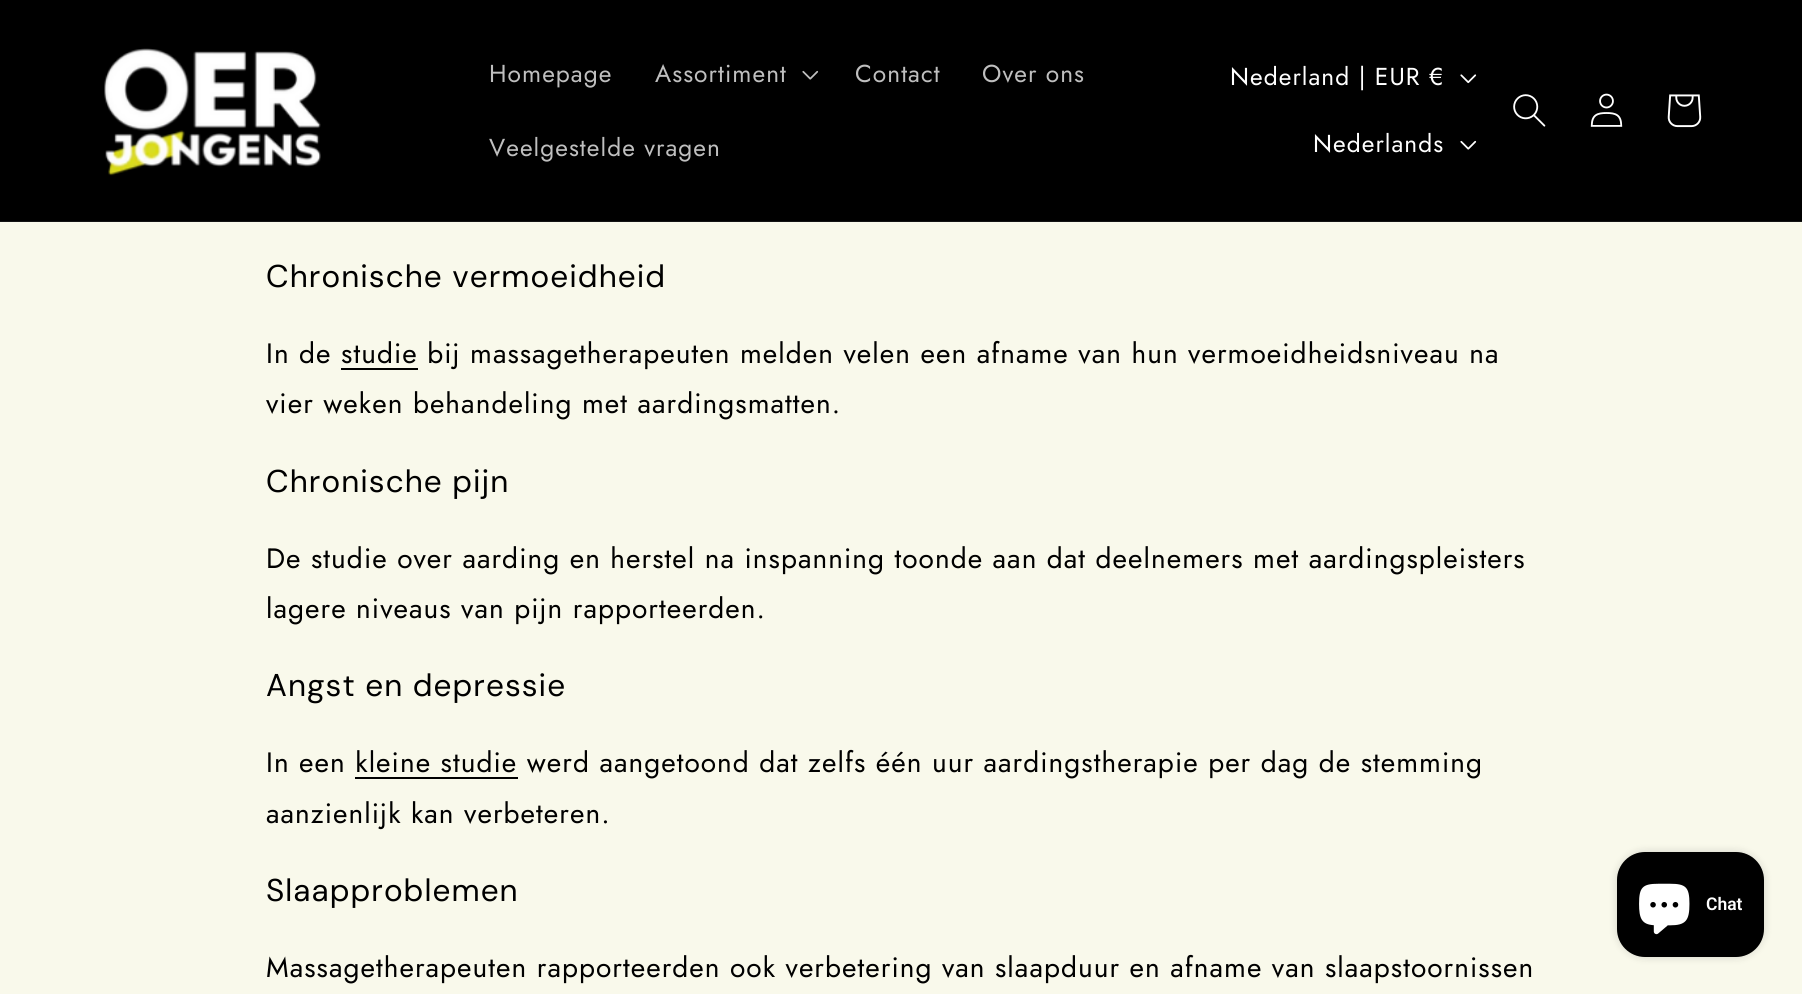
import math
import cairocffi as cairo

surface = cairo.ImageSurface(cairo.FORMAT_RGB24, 1802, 994)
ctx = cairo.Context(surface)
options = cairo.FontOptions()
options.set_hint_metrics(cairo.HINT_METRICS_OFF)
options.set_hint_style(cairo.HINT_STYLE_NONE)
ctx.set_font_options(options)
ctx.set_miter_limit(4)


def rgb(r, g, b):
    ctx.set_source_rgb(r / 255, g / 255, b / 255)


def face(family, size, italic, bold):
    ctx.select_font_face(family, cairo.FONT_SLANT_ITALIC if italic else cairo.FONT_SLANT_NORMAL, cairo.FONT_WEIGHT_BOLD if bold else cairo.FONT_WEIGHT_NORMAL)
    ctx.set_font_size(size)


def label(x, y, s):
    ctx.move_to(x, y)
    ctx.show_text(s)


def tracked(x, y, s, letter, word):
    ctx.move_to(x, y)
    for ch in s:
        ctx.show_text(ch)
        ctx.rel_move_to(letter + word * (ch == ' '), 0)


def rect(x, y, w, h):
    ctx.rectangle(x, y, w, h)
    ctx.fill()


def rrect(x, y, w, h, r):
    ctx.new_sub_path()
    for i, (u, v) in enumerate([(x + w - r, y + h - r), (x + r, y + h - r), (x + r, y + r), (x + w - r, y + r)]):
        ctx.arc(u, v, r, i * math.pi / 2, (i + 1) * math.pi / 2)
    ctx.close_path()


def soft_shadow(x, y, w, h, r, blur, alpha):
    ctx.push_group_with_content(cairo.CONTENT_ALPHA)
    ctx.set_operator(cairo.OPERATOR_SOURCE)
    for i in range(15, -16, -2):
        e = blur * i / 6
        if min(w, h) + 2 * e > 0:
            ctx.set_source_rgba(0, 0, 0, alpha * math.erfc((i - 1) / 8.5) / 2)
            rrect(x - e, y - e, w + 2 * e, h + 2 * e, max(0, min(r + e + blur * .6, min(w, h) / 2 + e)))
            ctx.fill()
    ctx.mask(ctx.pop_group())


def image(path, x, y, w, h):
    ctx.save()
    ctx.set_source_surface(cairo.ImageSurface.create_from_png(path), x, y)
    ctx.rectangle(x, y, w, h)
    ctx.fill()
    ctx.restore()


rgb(249, 249, 235)
ctx.paint()
rgb(0, 0, 0)
rect(0, 0, 1802, 221)
rgb(20, 20, 20)
rect(0, 221, 1802, 1)
image('image0.png', 104, 48, 217, 128)
face('Jost', 24.5, 0, 0)
rgb(191, 191, 191)
tracked(489, 82, 'Homepage', 1.05, 0)
tracked(655, 82, 'Assortiment', 1.05, 0)
image('image1.png', 802, 70, 17, 10)
tracked(855, 82, 'Contact', 1.05, 0)
tracked(982, 82, 'Over ons', 1.05, 0)
tracked(489, 156, 'Veelgestelde vragen', 1.05, 0)
rgb(255, 255, 255)
tracked(1230, 85, 'Nederland | EUR €', 1.05, 0)
image('image2.png', 1460, 74, 17, 10)
tracked(1313, 152, 'Nederlands', 1.05, 0)
image('image3.png', 1460, 140, 17, 10)
image('image4.png', 1513, 94, 33, 33)
image('image5.png', 1590, 93, 33, 34)
image('image6.png', 1667, 94, 35, 34)
face('DM Sans', 31.5, 0, 0)
rgb(0, 0, 0)
tracked(266, 287, 'Chronische vermoeidheid', 1.05, 0)
face('Jost', 28, 0, 0)
tracked(266, 363, 'In de studie bij massagetherapeuten melden velen een afname van hun vermoeidheidsniveau na', 1.05, 0)
rect(341, 368, 77, 2)
tracked(266, 413, 'vier weken behandeling met aardingsmatten.', 1.05, 0)
face('DM Sans', 31.5, 0, 0)
tracked(266, 492, 'Chronische pijn', 1.05, 0)
face('Jost', 28, 0, 0)
tracked(266, 568, 'De studie over aarding en herstel na inspanning toonde aan dat deelnemers met aardingspleisters', 1.05, 0)
tracked(266, 618, 'lagere niveaus van pijn rapporteerden.', 1.05, 0)
face('DM Sans', 31.5, 0, 0)
tracked(266, 696, 'Angst en depressie', 1.05, 0)
face('Jost', 28, 0, 0)
tracked(266, 772, 'In een kleine studie werd aangetoond dat zelfs één uur aardingstherapie per dag de stemming', 1.05, 0)
rect(355, 777, 163, 2)
tracked(266, 823, 'aanzienlijk kan verbeteren.', 1.05, 0)
face('DM Sans', 31.5, 0, 0)
tracked(266, 901, 'Slaapproblemen', 1.05, 0)
face('Jost', 28, 0, 0)
tracked(266, 977, 'Massagetherapeuten rapporteerden ook verbetering van slaapduur en afname van slaapstoornissen', 1.05, 0)
rgb(0, 0, 0)
soft_shadow(1617, 852, 147, 105, 28, 4.5, 0.15)
rgb(0, 0, 0)
rrect(1617, 852, 147, 105, 28)
ctx.fill()
image('image7.png', 1639, 883, 51, 52)
face('Roboto SemiBold', 17.5, 0, 0)
rgb(255, 255, 255)
label(1706, 910, 'Chat')
surface.write_to_png('render.png')
